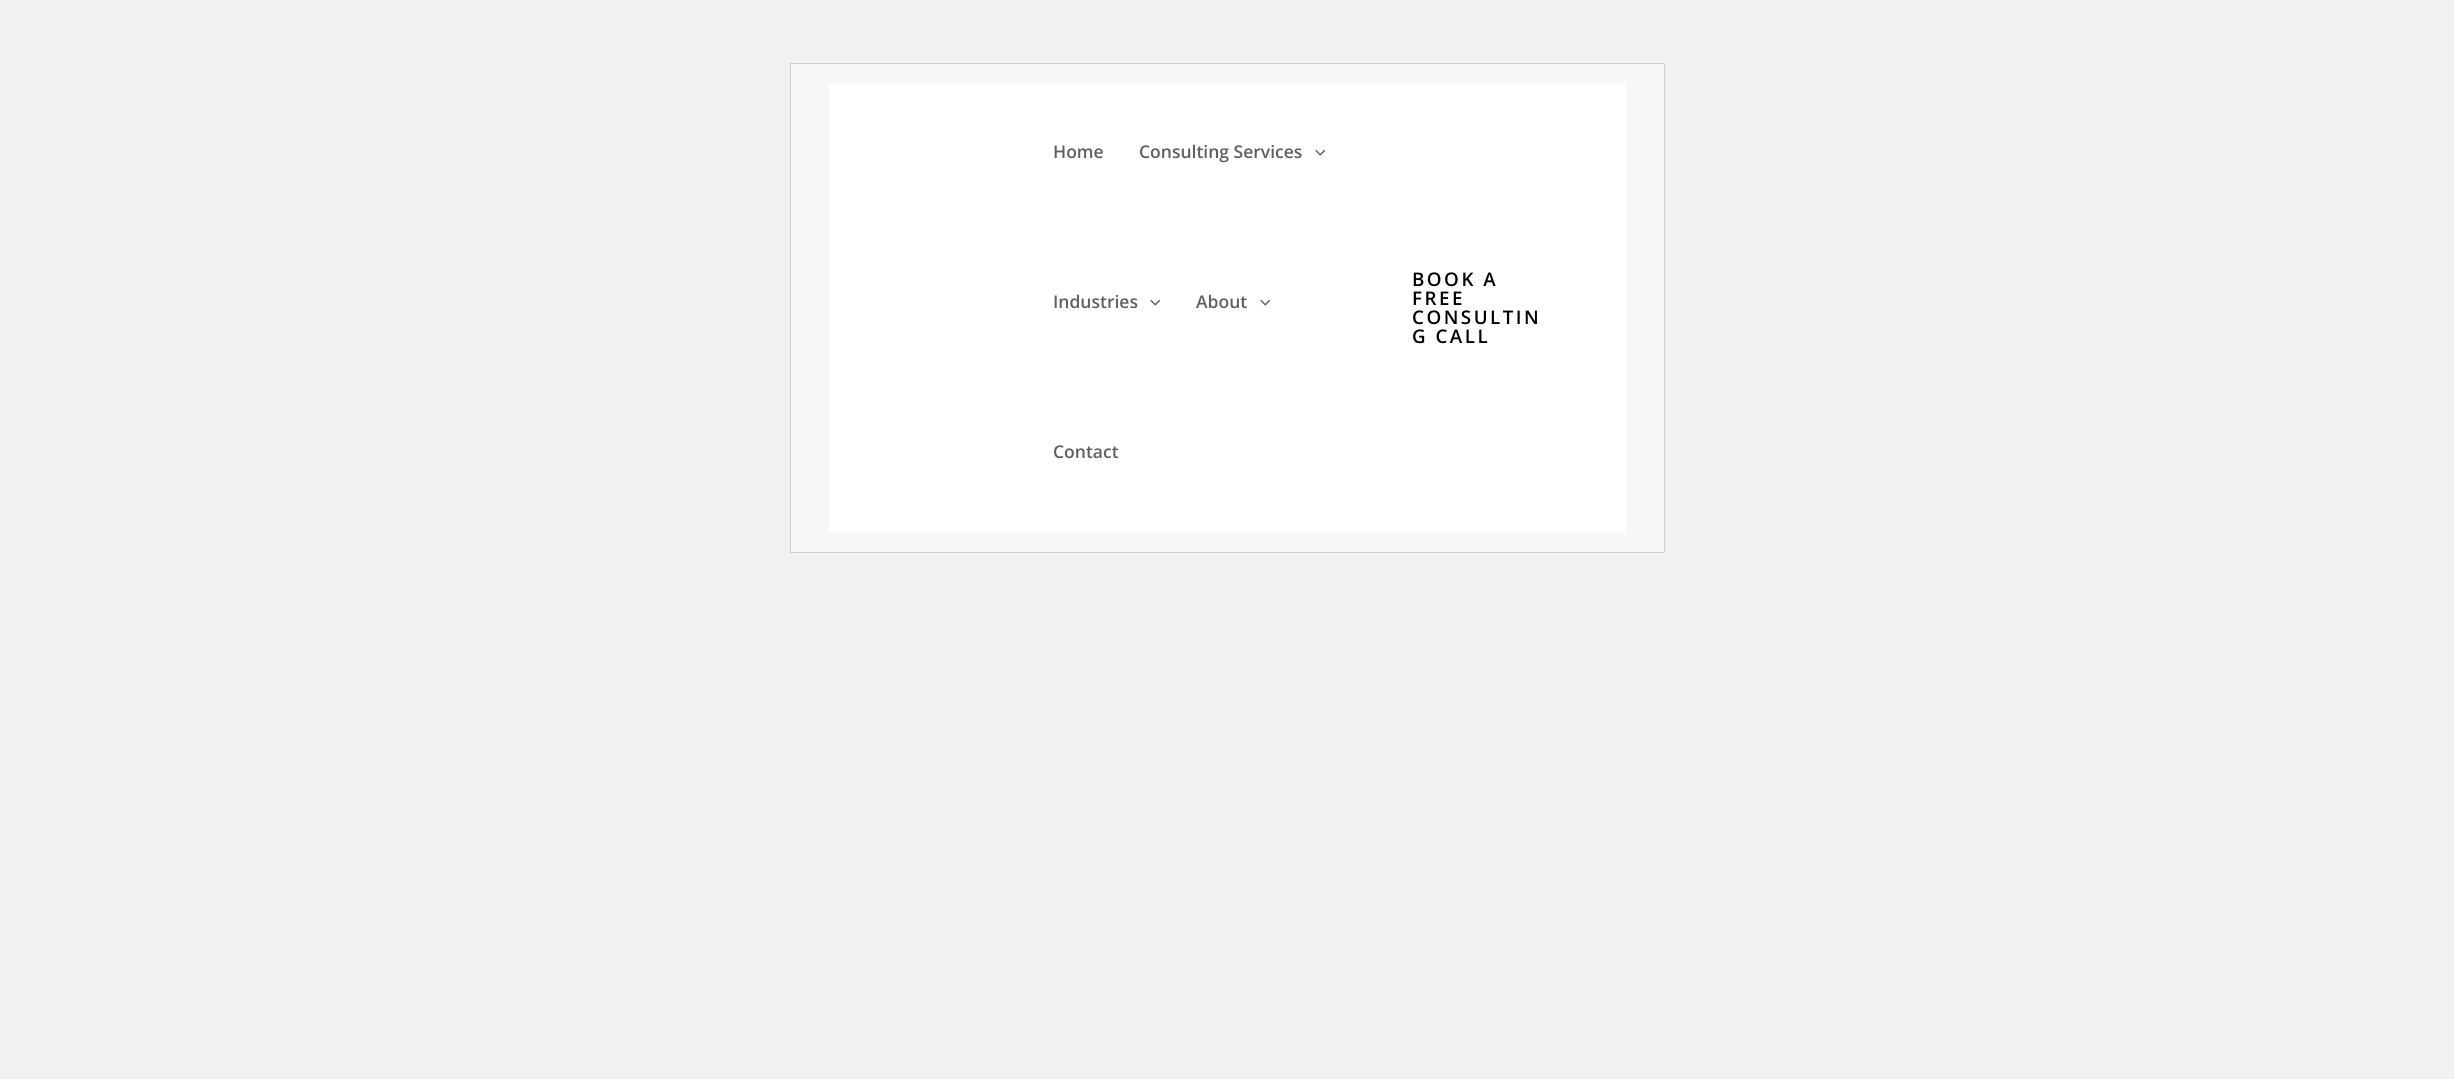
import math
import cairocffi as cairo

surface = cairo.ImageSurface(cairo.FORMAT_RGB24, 2454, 1079)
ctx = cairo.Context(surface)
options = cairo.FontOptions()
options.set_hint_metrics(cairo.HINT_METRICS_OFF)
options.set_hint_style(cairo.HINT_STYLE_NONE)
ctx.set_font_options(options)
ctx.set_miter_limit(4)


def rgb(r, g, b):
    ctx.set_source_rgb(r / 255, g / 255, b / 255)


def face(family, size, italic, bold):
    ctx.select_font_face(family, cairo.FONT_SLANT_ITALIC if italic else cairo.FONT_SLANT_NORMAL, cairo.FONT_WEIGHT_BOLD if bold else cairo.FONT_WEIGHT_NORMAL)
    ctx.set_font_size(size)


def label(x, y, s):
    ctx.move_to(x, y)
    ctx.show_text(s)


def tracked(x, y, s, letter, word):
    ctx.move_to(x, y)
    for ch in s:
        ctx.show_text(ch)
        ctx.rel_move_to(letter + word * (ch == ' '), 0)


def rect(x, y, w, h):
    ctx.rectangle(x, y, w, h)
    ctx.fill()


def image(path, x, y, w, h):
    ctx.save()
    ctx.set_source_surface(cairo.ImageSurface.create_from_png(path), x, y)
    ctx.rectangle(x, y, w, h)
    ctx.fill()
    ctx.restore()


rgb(241, 241, 241)
ctx.paint()
rgb(247, 247, 247)
ctx.rectangle(790.5, 63.5, 874, 489)
ctx.fill_preserve()
rgb(204, 208, 212)
ctx.set_line_width(1)
ctx.stroke()
rgb(255, 255, 255)
rect(829, 83, 797, 450)
face('Open Sans SemiBold', 17.5, 0, 0)
rgb(95, 95, 95)
label(1053, 158, 'Home')
label(1139, 158, 'Consulting Services')
image('image0.png', 1315, 149, 10, 7)
label(1053, 308, 'Industries')
image('image1.png', 1150, 299, 11, 7)
label(1196, 308, 'About')
image('image0.png', 1260, 299, 10, 7)
label(1053, 458, 'Contact')
face('Open Sans SemiBold', 18.75, 0, 0)
rgb(0, 0, 0)
tracked(1412, 286, 'BOOK A', 2.5, 0)
tracked(1412, 305, 'FREE', 2.5, 0)
tracked(1412, 324, 'CONSULTIN', 2.5, 0)
tracked(1412, 343, 'G CALL', 2.5, 0)
surface.write_to_png('render.png')
